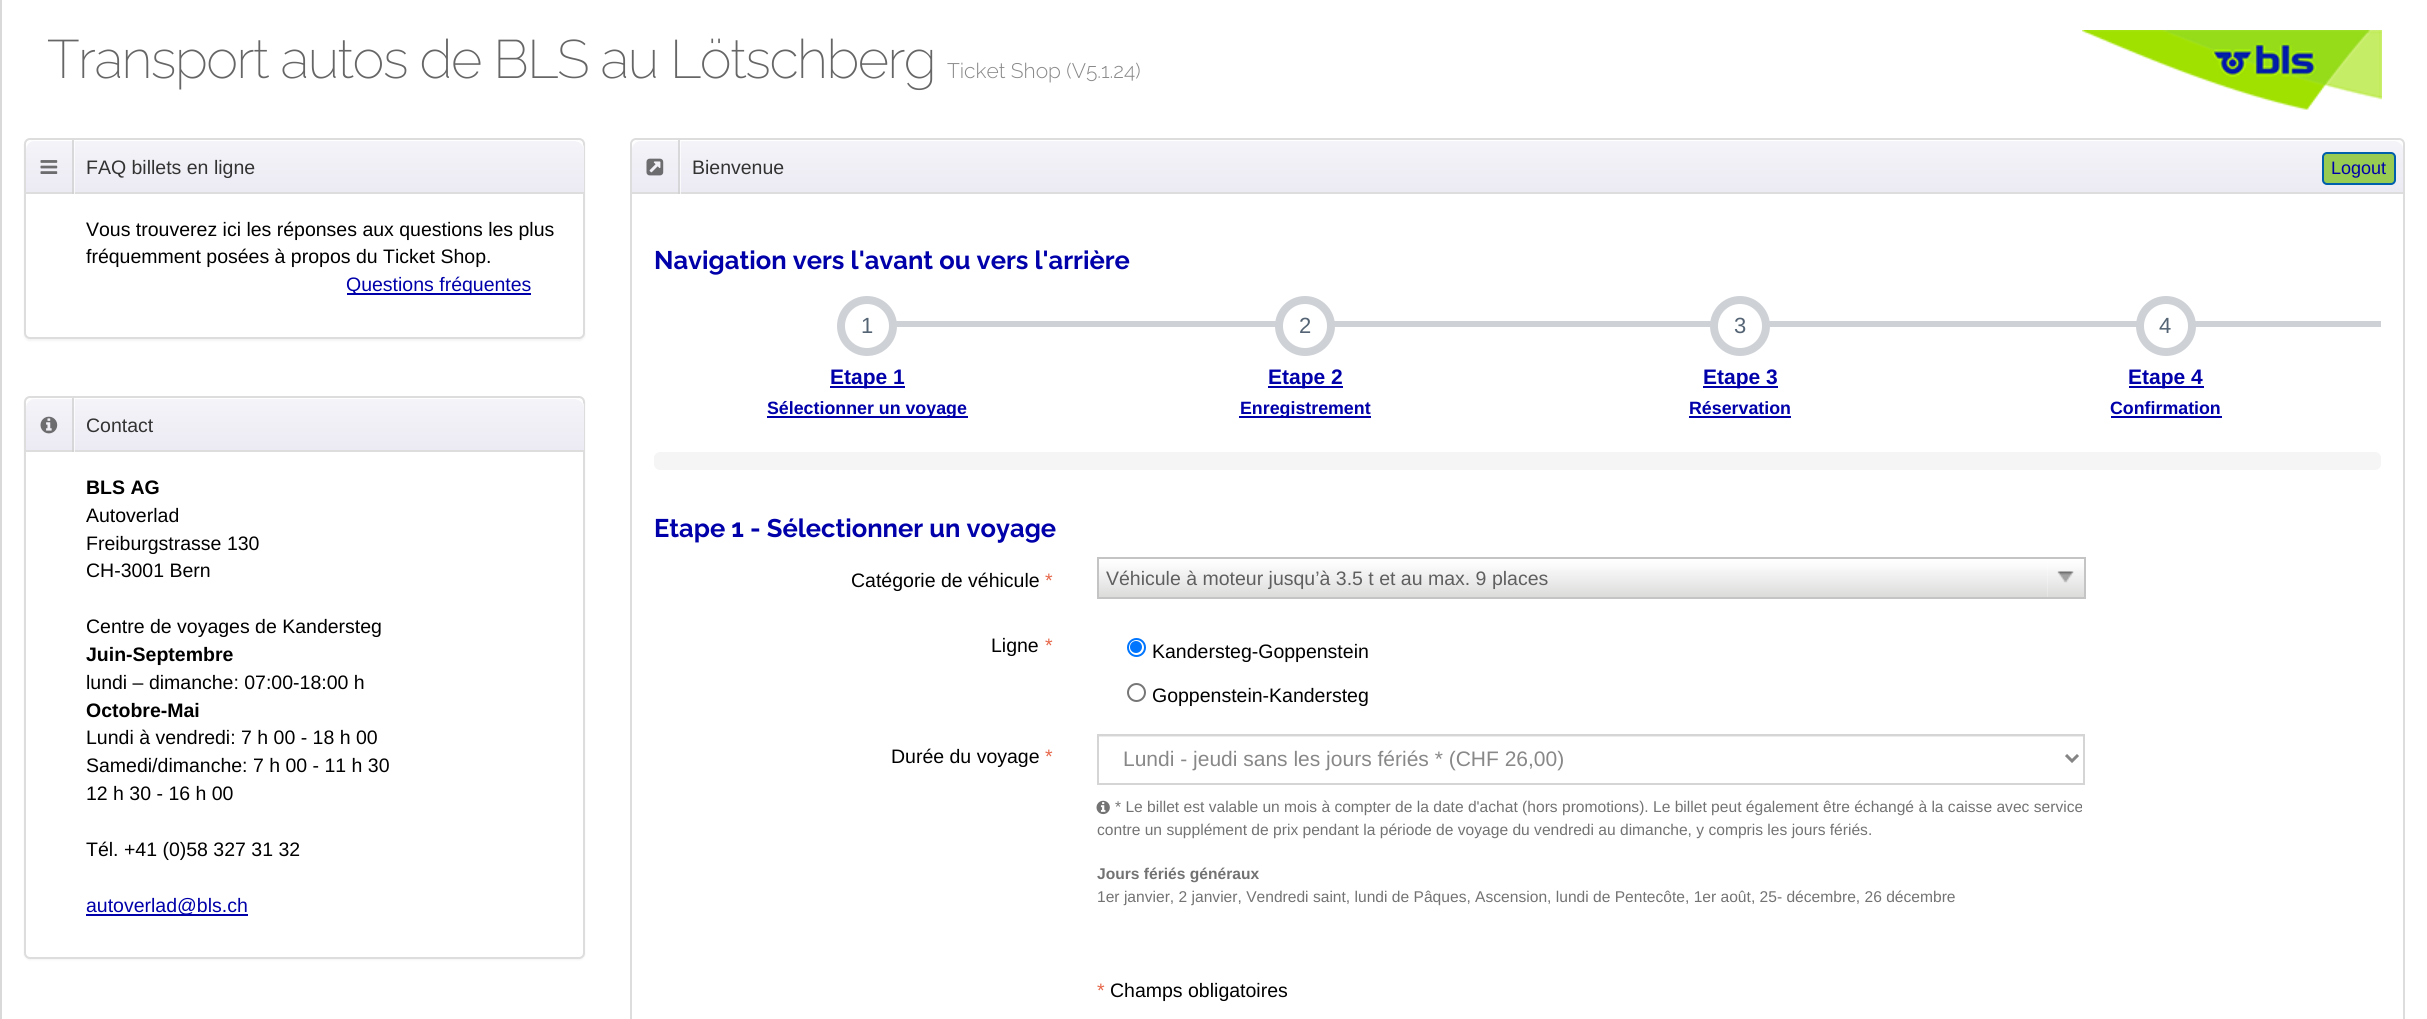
import math
import cairocffi as cairo

surface = cairo.ImageSurface(cairo.FORMAT_RGB24, 2427, 1019)
ctx = cairo.Context(surface)
options = cairo.FontOptions()
options.set_hint_metrics(cairo.HINT_METRICS_OFF)
options.set_hint_style(cairo.HINT_STYLE_NONE)
ctx.set_font_options(options)
ctx.set_miter_limit(4)


def rgb(r, g, b):
    ctx.set_source_rgb(r / 255, g / 255, b / 255)


def face(family, size, italic, bold):
    ctx.select_font_face(family, cairo.FONT_SLANT_ITALIC if italic else cairo.FONT_SLANT_NORMAL, cairo.FONT_WEIGHT_BOLD if bold else cairo.FONT_WEIGHT_NORMAL)
    ctx.set_font_size(size)


def label(x, y, s):
    ctx.move_to(x, y)
    ctx.show_text(s)


def tracked(x, y, s, letter, word):
    ctx.move_to(x, y)
    for ch in s:
        ctx.show_text(ch)
        ctx.rel_move_to(letter + word * (ch == ' '), 0)


def rect(x, y, w, h):
    ctx.rectangle(x, y, w, h)
    ctx.fill()


def rrect(x, y, w, h, r):
    ctx.new_sub_path()
    for i, (u, v) in enumerate([(x + w - r, y + h - r), (x + r, y + h - r), (x + r, y + r), (x + w - r, y + r)]):
        ctx.arc(u, v, r, i * math.pi / 2, (i + 1) * math.pi / 2)
    ctx.close_path()


def soft_shadow(x, y, w, h, r, blur, alpha):
    ctx.push_group_with_content(cairo.CONTENT_ALPHA)
    ctx.set_operator(cairo.OPERATOR_SOURCE)
    for i in range(15, -16, -2):
        e = blur * i / 6
        if min(w, h) + 2 * e > 0:
            ctx.set_source_rgba(0, 0, 0, alpha * math.erfc((i - 1) / 8.5) / 2)
            rrect(x - e, y - e, w + 2 * e, h + 2 * e, max(0, min(r + e + blur * .6, min(w, h) / 2 + e)))
            ctx.fill()
    ctx.mask(ctx.pop_group())


def image(path, x, y, w, h):
    ctx.save()
    ctx.set_source_surface(cairo.ImageSurface.create_from_png(path), x, y)
    ctx.rectangle(x, y, w, h)
    ctx.fill()
    ctx.restore()


rgb(255, 255, 255)
ctx.paint()
rgb(217, 217, 217)
rect(0, 0, 2, 1019)
face('Raleway ExtraLight', 54, 0, 0)
rgb(102, 102, 102)
tracked(47, 78, 'Transport autos de BLS au Lötschberg', -1.5, 0)
face('Raleway Light', 21, 0, 0)
rgb(136, 136, 136)
label(947, 78, 'Ticket Shop (V5.1.24)')
image('image0.png', 2082, 30, 300, 80)
rgb(0, 0, 0)
soft_shadow(24, 140, 561, 201, 6, 1, 0.05)
rgb(255, 255, 255)
rrect(25, 139, 559, 199, 5)
ctx.fill_preserve()
rgb(221, 221, 221)
ctx.stroke()
gradient = cairo.LinearGradient(305, 139, 305, 192)
gradient.add_color_stop_rgba(0, 0.961, 0.957, 0.976, 1)
gradient.add_color_stop_rgba(1, 0.925, 0.918, 0.953, 1)
ctx.set_source(gradient)
ctx.new_path()
ctx.move_to(35, 140)
ctx.line_to(575, 140)
ctx.curve_to(580, 140, 584, 144, 584, 149)
ctx.line_to(584, 192)
ctx.line_to(26, 192)
ctx.line_to(26, 149)
ctx.curve_to(26, 144, 30, 140, 35, 140)
ctx.close_path()
ctx.fill()
rgb(255, 255, 255)
ctx.new_path()
ctx.move_to(34, 141)
ctx.line_to(574, 141)
ctx.curve_to(579, 141, 584, 145, 584, 150)
ctx.line_to(584, 149)
ctx.curve_to(584, 144, 580, 140, 575, 140)
ctx.line_to(35, 140)
ctx.curve_to(30, 140, 26, 144, 26, 149)
ctx.line_to(26, 150)
ctx.curve_to(26, 145, 30, 141, 34, 141)
ctx.close_path()
ctx.fill()
rgb(221, 221, 221)
rect(26, 192, 558, 2)
ctx.set_source_rgba(1, 1, 1, 0.7)
ctx.new_path()
ctx.move_to(27, 194)
ctx.line_to(75, 194)
ctx.line_to(75, 140)
ctx.line_to(74, 140)
ctx.line_to(74, 194)
ctx.close_path()
ctx.fill()
ctx.set_source_rgba(0.804, 0.804, 0.804, 0.7)
rect(72, 140, 2, 54)
image('image1.png', 40, 160, 18, 14)
face('Liberation Sans', 19.5, 0, 0)
rgb(51, 51, 51)
label(86, 174, 'FAQ billets en ligne')
rgb(0, 0, 0)
label(86, 236, 'Vous trouverez ici les réponses aux questions les plus')
label(86, 263, 'fréquemment posées à propos du Ticket Shop.')
rgb(0, 0, 170)
rect(347, 293, 184, 2)
label(346, 291, 'Questions fréquentes')
rgb(0, 0, 0)
soft_shadow(24, 398, 561, 562, 6, 1, 0.05)
rgb(255, 255, 255)
rrect(25, 397, 559, 561, 5)
ctx.fill_preserve()
rgb(221, 221, 221)
ctx.stroke()
gradient = cairo.LinearGradient(305, 398, 305, 450)
gradient.add_color_stop_rgba(0, 0.961, 0.957, 0.976, 1)
gradient.add_color_stop_rgba(1, 0.925, 0.918, 0.953, 1)
ctx.set_source(gradient)
ctx.new_path()
ctx.move_to(35, 398)
ctx.line_to(575, 398)
ctx.curve_to(580, 398, 584, 402, 584, 407)
ctx.line_to(584, 450)
ctx.line_to(26, 450)
ctx.line_to(26, 407)
ctx.curve_to(26, 402, 30, 398, 35, 398)
ctx.close_path()
ctx.fill()
rgb(255, 255, 255)
ctx.new_path()
ctx.move_to(34, 399)
ctx.line_to(574, 399)
ctx.curve_to(579, 399, 584, 403, 584, 408)
ctx.line_to(584, 407)
ctx.curve_to(584, 402, 580, 398, 575, 398)
ctx.line_to(35, 398)
ctx.curve_to(30, 398, 26, 402, 26, 407)
ctx.line_to(26, 408)
ctx.curve_to(26, 403, 30, 399, 34, 399)
ctx.close_path()
ctx.fill()
rgb(221, 221, 221)
rect(26, 450, 558, 2)
ctx.set_source_rgba(1, 1, 1, 0.7)
ctx.new_path()
ctx.move_to(27, 452)
ctx.line_to(75, 452)
ctx.line_to(75, 398)
ctx.line_to(74, 398)
ctx.line_to(74, 452)
ctx.close_path()
ctx.fill()
ctx.set_source_rgba(0.804, 0.804, 0.804, 0.7)
rect(72, 398, 2, 54)
image('image2.png', 40, 416, 18, 18)
rgb(51, 51, 51)
label(86, 432, 'Contact')
face('Liberation Sans', 19.5, 0, 1)
rgb(0, 0, 0)
label(86, 494, 'BLS AG')
face('Liberation Sans', 19.5, 0, 0)
label(86, 522, 'Autoverlad')
label(86, 550, 'Freiburgstrasse 130')
label(86, 577, 'CH-3001 Bern')
label(86, 633, 'Centre de voyages de Kandersteg')
face('Liberation Sans', 19.5, 0, 1)
label(86, 661, 'Juin-Septembre')
face('Liberation Sans', 19.5, 0, 0)
label(86, 689, 'lundi – dimanche: 07:00-18:00 h')
face('Liberation Sans', 19.5, 0, 1)
label(86, 717, 'Octobre-Mai')
face('Liberation Sans', 19.5, 0, 0)
label(86, 744, 'Lundi à vendredi: 7 h 00 - 18 h 00')
label(86, 772, 'Samedi/dimanche: 7 h 00 - 11 h 30')
label(86, 800, '12 h 30 - 16 h 00')
label(86, 856, 'Tél. +41 (0)58 327 31 32')
rgb(0, 0, 170)
rect(86, 914, 162, 2)
label(86, 912, 'autoverlad@bls.ch')
rrect(631, 139, 1773, 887, 5)
rgb(221, 221, 221)
ctx.stroke()
gradient = cairo.LinearGradient(1517, 139, 1517, 192)
gradient.add_color_stop_rgba(0, 0.961, 0.957, 0.976, 1)
gradient.add_color_stop_rgba(1, 0.925, 0.918, 0.953, 1)
ctx.set_source(gradient)
ctx.new_path()
ctx.move_to(641, 140)
ctx.line_to(2394, 140)
ctx.curve_to(2399, 140, 2403, 144, 2403, 149)
ctx.line_to(2403, 192)
ctx.line_to(632, 192)
ctx.line_to(632, 149)
ctx.curve_to(632, 144, 636, 140, 641, 140)
ctx.close_path()
ctx.fill()
rgb(255, 255, 255)
ctx.new_path()
ctx.move_to(640, 141)
ctx.line_to(2394, 141)
ctx.curve_to(2399, 141, 2403, 145, 2403, 150)
ctx.curve_to(2403, 145, 2400, 140, 2394, 140)
ctx.line_to(641, 140)
ctx.curve_to(635, 140, 632, 145, 632, 150)
ctx.curve_to(632, 145, 636, 141, 640, 141)
ctx.close_path()
ctx.fill()
rgb(221, 221, 221)
rect(632, 192, 1771, 2)
ctx.set_source_rgba(1, 1, 1, 0.7)
ctx.new_path()
ctx.move_to(633, 194)
ctx.line_to(681, 194)
ctx.line_to(681, 140)
ctx.line_to(680, 140)
ctx.line_to(680, 194)
ctx.close_path()
ctx.fill()
ctx.set_source_rgba(0.804, 0.804, 0.804, 0.7)
rect(678, 140, 2, 54)
image('image3.png', 646, 158, 18, 18)
rgb(51, 51, 51)
label(692, 174, 'Bienvenue')
rgb(152, 203, 82)
rrect(2323, 153, 72, 31, 4)
ctx.fill_preserve()
rgb(0, 95, 170)
ctx.stroke()
face('Liberation Sans', 18, 0, 0)
rgb(0, 0, 170)
label(2331, 174, 'Logout')
face('Raleway', 25.5, 0, 1)
label(654, 269, 'Navigation vers l\'avant ou vers l\'arrière')
rgb(206, 209, 214)
rect(896, 321, 1485, 6)
rgb(255, 255, 255)
ctx.new_path()
ctx.arc(867, 326, 26, 0, 2 * math.pi)
ctx.fill_preserve()
rgb(206, 209, 214)
ctx.set_line_width(8)
ctx.stroke()
face('Liberation Sans', 22, 0, 0)
rgb(84, 100, 116)
label(861, 333, '1')
rgb(0, 0, 170)
rect(830, 386, 75, 2)
face('Liberation Sans', 21, 0, 1)
label(830, 384, 'Etape 1')
rect(767, 416, 201, 2)
face('Liberation Sans', 17.8, 0, 1)
label(767, 414, 'Sélectionner un voyage')
rgb(255, 255, 255)
ctx.new_path()
ctx.arc(1305, 326, 26, 0, 2 * math.pi)
ctx.fill_preserve()
rgb(206, 209, 214)
ctx.stroke()
face('Liberation Sans', 22, 0, 0)
rgb(84, 100, 116)
label(1299, 333, '2')
rgb(0, 0, 170)
rect(1268, 386, 75, 2)
face('Liberation Sans', 21, 0, 1)
label(1268, 384, 'Etape 2')
rect(1239, 416, 132, 2)
face('Liberation Sans', 17.8, 0, 1)
label(1240, 414, 'Enregistrement')
rgb(255, 255, 255)
ctx.new_path()
ctx.arc(1740, 326, 26, 0, 2 * math.pi)
ctx.fill_preserve()
rgb(206, 209, 214)
ctx.stroke()
face('Liberation Sans', 22, 0, 0)
rgb(84, 100, 116)
label(1734, 333, '3')
rgb(0, 0, 170)
rect(1703, 386, 75, 2)
face('Liberation Sans', 21, 0, 1)
label(1703, 384, 'Etape 3')
face('Liberation Sans', 17.8, 0, 1)
label(1689, 414, 'Réservation')
rect(1689, 416, 102, 2)
rgb(255, 255, 255)
ctx.new_path()
ctx.arc(2166, 326, 26, 0, 2 * math.pi)
ctx.fill_preserve()
rgb(206, 209, 214)
ctx.stroke()
face('Liberation Sans', 22, 0, 0)
rgb(84, 100, 116)
label(2159, 333, '4')
rgb(0, 0, 170)
rect(2129, 386, 75, 2)
face('Liberation Sans', 21, 0, 1)
label(2128, 384, 'Etape 4')
face('Liberation Sans', 17.8, 0, 1)
label(2110, 414, 'Confirmation')
rect(2111, 416, 111, 2)
rgb(245, 245, 245)
rrect(654, 452, 1727, 18, 6)
ctx.fill()
face('Raleway', 25.5, 0, 1)
rgb(0, 0, 170)
label(654, 537, 'Etape 1 - Sélectionner un voyage')
face('Liberation Sans', 19.5, 0, 0)
rgb(0, 0, 0)
label(851, 587, 'Catégorie de véhicule')
rgb(230, 103, 74)
label(1045, 587, '*')
image('image6.png', 1099, 560, 949, 37)
image('image4.png', 2047, 560, 37, 37)
rgb(196, 196, 196)
rect(1097, 557, 988, 2)
rect(2084, 557, 2, 42)
rect(1097, 597, 988, 2)
image('image5.png', 2057, 571, 17, 12)
rect(1097, 557, 2, 42)
rgb(95, 95, 95)
label(1106, 585, 'Véhicule à moteur jusqu’à 3.5 t et au max. 9 places')
rgb(0, 0, 0)
label(991, 652, 'Ligne')
rgb(230, 103, 74)
label(1045, 652, '*')
ctx.new_path()
ctx.arc(1136.5, 647.5, 8.5, 0, 2 * math.pi)
rgb(0, 117, 255)
ctx.set_line_width(2)
ctx.stroke()
ctx.arc(1136, 647, 6, 0, 2 * math.pi)
ctx.fill()
rgb(0, 0, 0)
label(1152, 658, 'Kandersteg-Goppenstein')
ctx.new_path()
ctx.arc(1136.5, 692.5, 8.5, 0, 2 * math.pi)
rgb(118, 118, 118)
ctx.stroke()
rgb(0, 0, 0)
label(1152, 702, 'Goppenstein-Kandersteg')
label(891, 763, 'Durée du voyage')
rgb(230, 103, 74)
label(1045, 763, '*')
rgb(236, 236, 236)
rect(1098, 736, 986, 1)
ctx.rectangle(1098, 735, 986, 49)
rgb(213, 213, 213)
ctx.stroke()
ctx.new_path()
ctx.move_to(2066, 755)
ctx.line_to(2072, 761)
ctx.line_to(2078, 755)
rgb(133, 133, 133)
ctx.set_line_width(3)
ctx.stroke()
face('Liberation Sans', 21, 0, 0)
rgb(136, 136, 136)
label(1123, 766, 'Lundi - jeudi sans les jours fériés * (CHF 26,00)')
image('image7.png', 1096, 800, 14, 15)
face('Liberation Sans', 15.6, 0, 0)
rgb(115, 115, 115)
label(1115, 812, '* Le billet est valable un mois à compter de la date d\'achat (hors promotions). Le billet peut également être échangé à la caisse avec service')
label(1097, 835, 'contre un supplément de prix pendant la période de voyage du vendredi au dimanche, y compris les jours fériés.')
face('Liberation Sans', 15.6, 0, 1)
label(1097, 879, 'Jours fériés généraux')
face('Liberation Sans', 15.6, 0, 0)
label(1097, 902, '1er janvier, 2 janvier, Vendredi saint, lundi de Pâques, Ascension, lundi de Pentecôte, 1er août, 25- décembre, 26 décembre')
face('Liberation Sans', 19.5, 0, 0)
rgb(230, 103, 74)
label(1097, 997, '*')
rgb(0, 0, 0)
label(1110, 997, 'Champs obligatoires')
surface.write_to_png('render.png')
